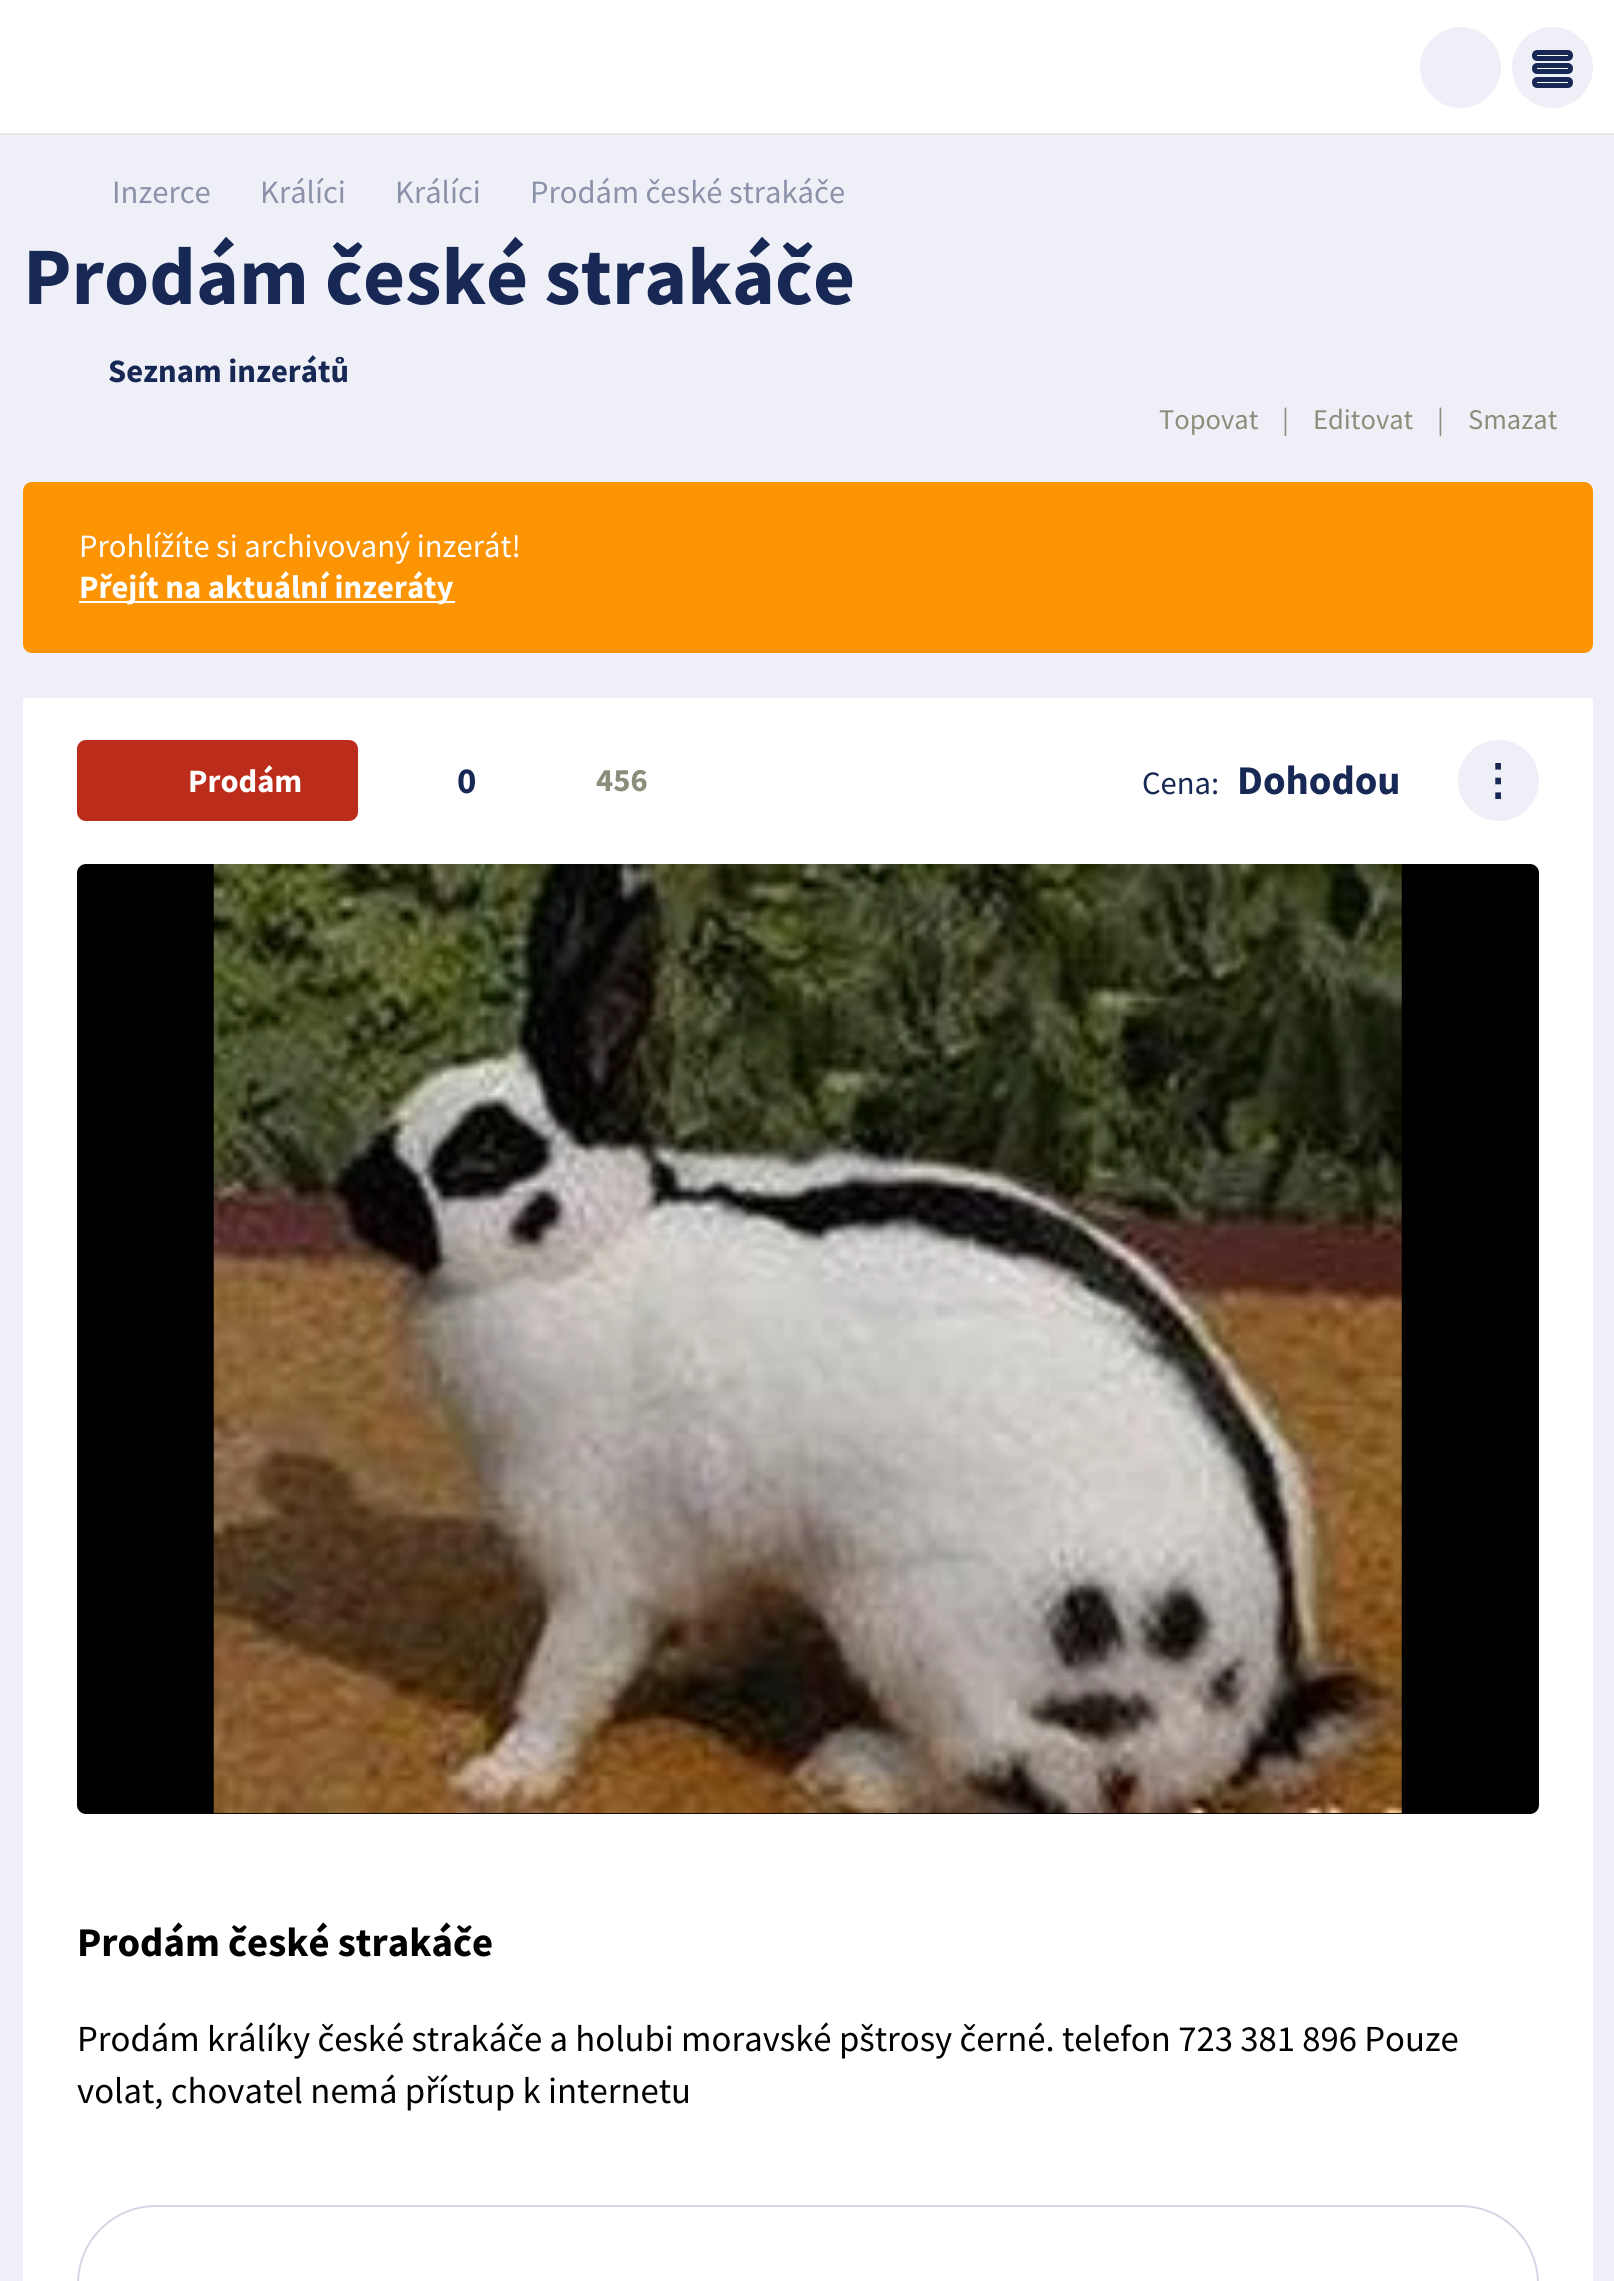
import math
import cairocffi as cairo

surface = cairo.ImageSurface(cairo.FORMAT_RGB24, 1614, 2281)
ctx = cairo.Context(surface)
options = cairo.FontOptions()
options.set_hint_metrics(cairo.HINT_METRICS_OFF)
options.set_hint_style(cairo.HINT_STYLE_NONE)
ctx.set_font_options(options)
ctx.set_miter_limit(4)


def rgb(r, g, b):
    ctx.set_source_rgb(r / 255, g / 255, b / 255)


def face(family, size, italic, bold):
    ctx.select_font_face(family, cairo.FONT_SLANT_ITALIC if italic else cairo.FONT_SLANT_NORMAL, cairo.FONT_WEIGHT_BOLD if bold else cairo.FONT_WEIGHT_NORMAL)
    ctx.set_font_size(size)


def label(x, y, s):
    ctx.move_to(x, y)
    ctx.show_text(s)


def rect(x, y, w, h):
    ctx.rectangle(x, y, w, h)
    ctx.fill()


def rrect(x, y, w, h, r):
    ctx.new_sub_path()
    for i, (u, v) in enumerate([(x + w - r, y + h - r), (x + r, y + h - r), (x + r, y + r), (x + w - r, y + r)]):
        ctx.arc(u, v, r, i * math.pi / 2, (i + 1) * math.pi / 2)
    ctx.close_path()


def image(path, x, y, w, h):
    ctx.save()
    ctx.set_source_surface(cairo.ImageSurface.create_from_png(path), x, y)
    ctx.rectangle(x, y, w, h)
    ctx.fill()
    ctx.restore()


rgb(255, 255, 255)
ctx.paint()
rgb(232, 232, 229)
rect(0, 133, 1614, 2)
rgb(239, 240, 247)
ctx.arc(1460.5, 67.5, 40.5, 0, 2 * math.pi)
ctx.fill()
ctx.arc(1552.5, 67.5, 40.5, 0, 2 * math.pi)
ctx.fill()
rgb(255, 255, 255)
rrect(1534.5, 65.5, 36, 6, 2.5)
ctx.fill_preserve()
rgb(23, 40, 84)
ctx.set_line_width(5)
ctx.stroke()
rgb(255, 255, 255)
rrect(1534.5, 52.5, 36, 6, 2.5)
ctx.fill_preserve()
rgb(23, 40, 84)
ctx.stroke()
rgb(255, 255, 255)
rrect(1534.5, 79.5, 36, 6, 2.5)
ctx.fill_preserve()
rgb(23, 40, 84)
ctx.stroke()
gradient = cairo.LinearGradient(808, 135, 808, 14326)
gradient.add_color_stop_rgba(0, 0.902, 0.906, 0.945, 1)
gradient.add_color_stop_rgba(0, 0.937, 0.941, 0.969, 1)
ctx.set_source(gradient)
rect(0, 135, 1614, 2146)
face('Source Sans Pro', 32.6, 0, 0)
rgb(140, 145, 170)
label(112, 203, 'Inzerce')
label(260, 203, 'Králíci')
label(395, 203, 'Králíci')
label(530, 203, 'Prodám české strakáče')
face('Source Sans Pro', 81.5, 0, 1)
rgb(23, 40, 84)
label(23, 304, 'Prodám české strakáče')
face('Source Sans Pro', 32.6, 0, 1)
label(108, 382, 'Seznam inzerátů')
face('Source Sans Pro', 28.5, 0, 0)
rgb(138, 142, 123)
label(1159, 429, 'Topovat')
label(1282, 429, '|')
label(1313, 429, 'Editovat')
label(1437, 429, '|')
label(1468, 429, 'Smazat')
rgb(252, 148, 3)
rrect(23, 482, 1570, 171, 9)
ctx.fill()
face('Source Sans Pro', 32.6, 0, 0)
rgb(255, 255, 255)
label(79, 557, 'Prohlížíte si archivovaný inzerát!')
rect(79, 601, 376, 2)
face('Source Sans Pro', 32.6, 0, 1)
label(79, 598, 'Přejít na aktuální inzeráty')
rect(23, 698, 1570, 1583)
rgb(188, 44, 26)
rrect(77, 740, 281, 81, 9)
ctx.fill()
rgb(255, 255, 255)
label(188, 792, 'Prodám')
face('Source Sans Pro', 36.7, 0, 1)
rgb(23, 40, 84)
label(457, 793, '0')
face('Source Sans Pro', 32.6, 0, 1)
rgb(138, 142, 123)
label(596, 791, '456')
face('Source Sans Pro', 32.6, 0, 0)
rgb(23, 40, 84)
label(1142, 794, 'Cena:')
face('Source Sans Pro', 40.75, 0, 1)
label(1237, 794, 'Dohodou')
rgb(239, 240, 247)
ctx.new_path()
ctx.arc(1498.5, 780.5, 40.5, 0, 2 * math.pi)
ctx.fill()
face('DejaVu Sans', 43, 0, 1)
rgb(23, 40, 84)
label(1476, 795, '⋮')
rgb(0, 0, 0)
rrect(77, 864, 1462, 950, 9)
ctx.fill()
image('image0.png', 213, 864, 1189, 950)
face('Source Sans Pro', 40.75, 0, 1)
label(77, 1956, 'Prodám české strakáče')
face('Source Sans Pro', 36.7, 0, 0)
label(77, 2051, 'Prodám králíky české strakáče a holubi moravské pštrosy černé. telefon 723 381 896 Pouze')
label(77, 2103, 'volat, chovatel nemá přístup k internetu')
rrect(78, 2206, 1460, 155, 78)
rgb(212, 214, 231)
ctx.set_line_width(2)
ctx.stroke()
surface.write_to_png('render.png')
